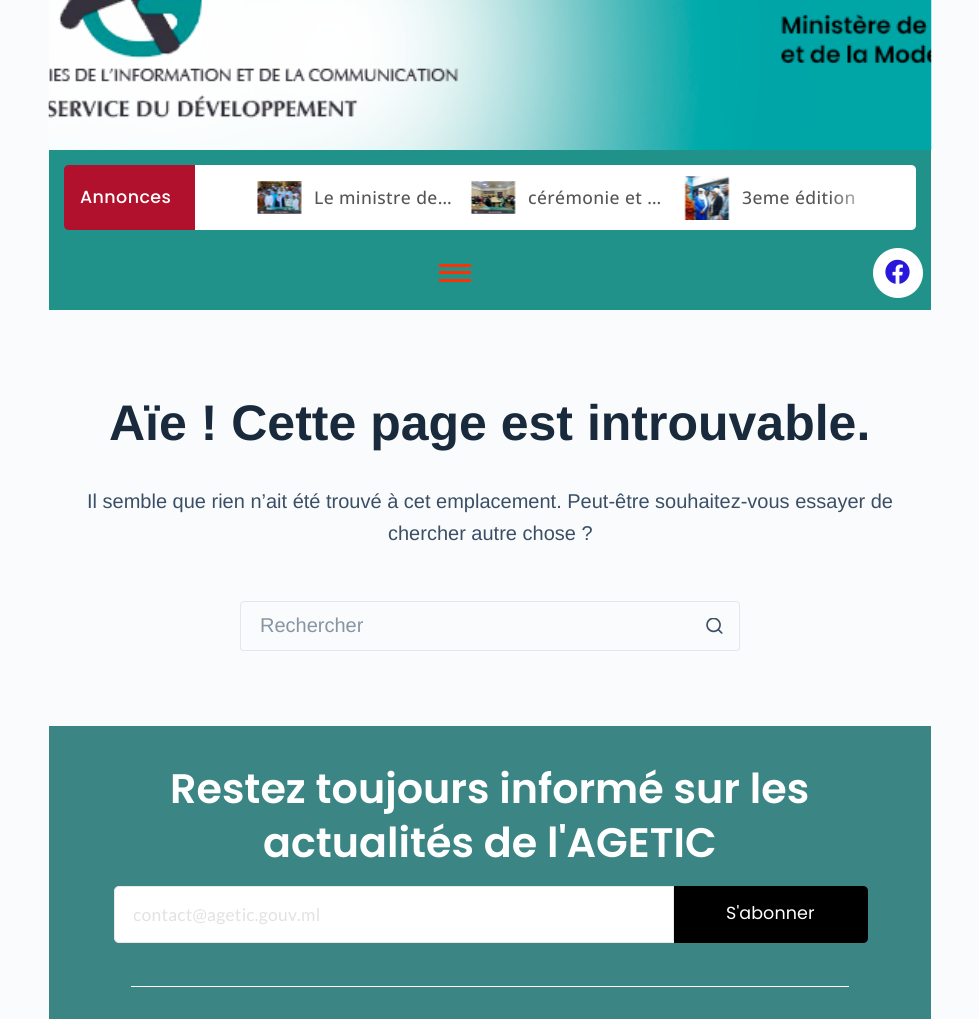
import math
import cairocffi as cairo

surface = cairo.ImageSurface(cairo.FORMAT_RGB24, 979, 1019)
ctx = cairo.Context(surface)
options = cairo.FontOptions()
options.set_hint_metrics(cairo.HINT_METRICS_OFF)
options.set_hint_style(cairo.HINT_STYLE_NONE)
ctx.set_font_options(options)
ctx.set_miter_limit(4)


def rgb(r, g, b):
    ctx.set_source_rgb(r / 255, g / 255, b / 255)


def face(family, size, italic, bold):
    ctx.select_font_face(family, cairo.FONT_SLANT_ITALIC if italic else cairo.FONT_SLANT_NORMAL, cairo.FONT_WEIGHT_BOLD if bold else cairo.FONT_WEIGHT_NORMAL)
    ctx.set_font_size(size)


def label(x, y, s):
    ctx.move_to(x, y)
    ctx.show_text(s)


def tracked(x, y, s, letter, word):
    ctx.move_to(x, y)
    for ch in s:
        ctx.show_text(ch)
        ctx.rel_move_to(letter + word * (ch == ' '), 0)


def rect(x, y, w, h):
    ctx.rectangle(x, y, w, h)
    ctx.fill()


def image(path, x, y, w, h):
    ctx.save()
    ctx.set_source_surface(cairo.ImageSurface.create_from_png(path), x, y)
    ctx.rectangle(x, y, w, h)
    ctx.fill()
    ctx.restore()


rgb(250, 251, 252)
ctx.paint()
image('image0.png', 48, 0, 884, 150)
rgb(32, 146, 137)
rect(49, 150, 882, 160)
rgb(177, 17, 44)
ctx.new_path()
ctx.move_to(69, 165)
ctx.line_to(195, 165)
ctx.line_to(195, 230)
ctx.line_to(69, 230)
ctx.curve_to(66, 230, 64, 228, 64, 225)
ctx.line_to(64, 170)
ctx.curve_to(64, 167, 66, 165, 69, 165)
ctx.close_path()
ctx.fill()
face('Poppins Medium', 17.5, 0, 0)
rgb(255, 255, 255)
tracked(80, 203, 'Annonces', 0.4, 0)
ctx.new_path()
ctx.move_to(195, 165)
ctx.line_to(911, 165)
ctx.curve_to(914, 165, 916, 167, 916, 170)
ctx.line_to(916, 225)
ctx.curve_to(916, 228, 914, 230, 911, 230)
ctx.line_to(195, 230)
ctx.close_path()
ctx.fill()
image('image1.png', 257, 181, 45, 33)
face('Open Sans Medium', 17.5, 0, 0)
rgb(85, 85, 85)
tracked(314, 204, 'Le ministre de…', 0.4, 0)
image('image2.png', 470, 181, 46, 33)
tracked(528, 204, 'cérémonie et …', 0.4, 0)
image('image3.png', 684, 176, 46, 44)
tracked(742, 204, '3eme édition', 0.4, 0)
gradient = cairo.LinearGradient(829, 198, 879, 198)
gradient.add_color_stop_rgba(0, 1, 1, 1, 0)
gradient.add_color_stop_rgba(1, 1, 1, 1, 1)
ctx.set_source(gradient)
rect(830, 191, 24, 14)
rgb(253, 49, 1)
rect(439, 264, 32, 3)
rect(439, 271, 32, 3)
rect(439, 279, 32, 3)
rgb(255, 255, 255)
ctx.new_path()
ctx.arc(898, 273, 25, 0, 2 * math.pi)
ctx.fill()
image('image4.png', 885, 259, 25, 25)
face('Liberation Sans', 50, 0, 1)
rgb(25, 42, 61)
label(109, 440, 'Aïe ! Cette page est introuvable.')
face('Liberation Sans', 20, 0, 0)
rgb(58, 79, 102)
label(87, 508, 'Il semble que rien n’ait été trouvé à cet emplacement. Peut-être souhaitez-vous essayer de')
label(388, 540, 'chercher autre chose ?')
rgb(225, 232, 237)
ctx.set_fill_rule(cairo.FILL_RULE_EVEN_ODD)
ctx.new_path()
ctx.move_to(244, 601)
ctx.line_to(690, 601)
ctx.line_to(690, 651)
ctx.line_to(244, 651)
ctx.curve_to(242, 651, 240, 650, 240, 648)
ctx.line_to(240, 605)
ctx.curve_to(240, 603, 242, 601, 244, 601)
ctx.close_path()
ctx.move_to(244, 602)
ctx.line_to(690, 602)
ctx.line_to(690, 650)
ctx.line_to(244, 650)
ctx.curve_to(242, 650, 241, 649, 241, 648)
ctx.line_to(241, 605)
ctx.curve_to(241, 604, 242, 602, 244, 602)
ctx.close_path()
ctx.fill()
rgb(135, 148, 162)
label(260, 632, 'Rechercher')
rgb(225, 232, 237)
ctx.new_path()
ctx.move_to(690, 601)
ctx.line_to(736, 601)
ctx.curve_to(738, 601, 740, 603, 740, 605)
ctx.line_to(740, 648)
ctx.curve_to(740, 650, 738, 651, 736, 651)
ctx.line_to(690, 651)
ctx.close_path()
ctx.move_to(690, 602)
ctx.line_to(736, 602)
ctx.curve_to(738, 602, 739, 604, 739, 605)
ctx.line_to(739, 648)
ctx.curve_to(739, 649, 738, 650, 736, 650)
ctx.line_to(690, 650)
ctx.close_path()
ctx.fill()
image('image5.png', 706, 618, 17, 16)
rgb(59, 133, 132)
rect(49, 726, 882, 293)
face('Poppins SemiBold', 41.25, 0, 0)
rgb(255, 255, 255)
label(170, 803, 'Restez toujours informé sur les')
label(263, 857, 'actualités de l\'AGETIC')
ctx.new_path()
ctx.move_to(119, 886.5)
ctx.line_to(673.5, 886.5)
ctx.line_to(673.5, 942.5)
ctx.line_to(119, 942.5)
ctx.curve_to(116.5, 942.5, 114.5, 940.5, 114.5, 938)
ctx.line_to(114.5, 891)
ctx.curve_to(114.5, 888.5, 116.5, 886.5, 119, 886.5)
ctx.close_path()
ctx.fill_preserve()
rgb(232, 232, 232)
ctx.set_line_width(1)
ctx.stroke()
ctx.save()
ctx.set_fill_rule(cairo.FILL_RULE_WINDING)
ctx.rectangle(134, 904, 520, 21)
ctx.clip()
face('Lato', 17.5, 0, 0)
rgb(226, 226, 226)
tracked(133, 921, 'contact@agetic.gouv.ml', 0.25, 0)
ctx.restore()
rgb(0, 0, 0)
ctx.new_path()
ctx.move_to(674, 886)
ctx.line_to(863, 886)
ctx.curve_to(866, 886, 868, 888, 868, 891)
ctx.line_to(868, 938)
ctx.curve_to(868, 941, 866, 943, 863, 943)
ctx.line_to(674, 943)
ctx.close_path()
ctx.fill()
face('Poppins', 17.5, 0, 0)
rgb(255, 255, 255)
tracked(726, 919, 'S\'abonner', 0.1, 0)
rect(131, 986, 718, 1)
surface.write_to_png('render.png')
